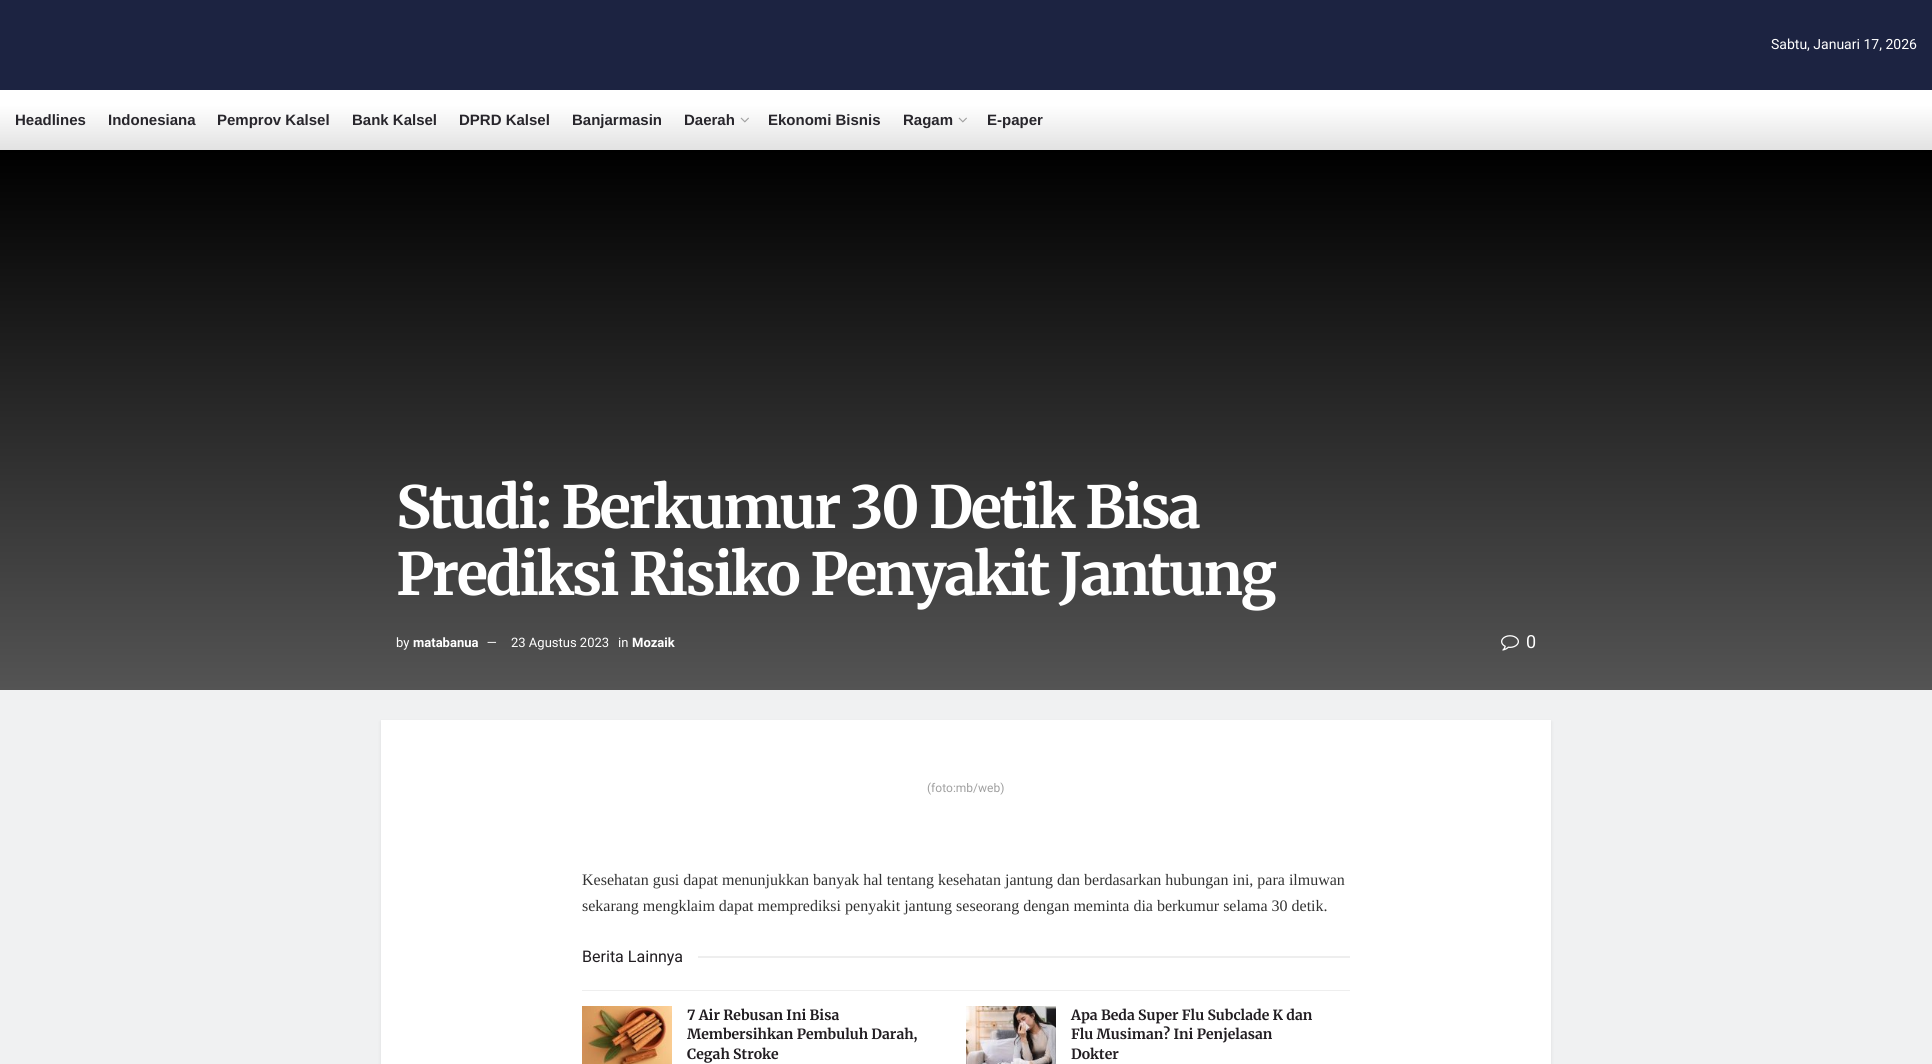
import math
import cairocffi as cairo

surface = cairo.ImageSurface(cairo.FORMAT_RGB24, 1932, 1064)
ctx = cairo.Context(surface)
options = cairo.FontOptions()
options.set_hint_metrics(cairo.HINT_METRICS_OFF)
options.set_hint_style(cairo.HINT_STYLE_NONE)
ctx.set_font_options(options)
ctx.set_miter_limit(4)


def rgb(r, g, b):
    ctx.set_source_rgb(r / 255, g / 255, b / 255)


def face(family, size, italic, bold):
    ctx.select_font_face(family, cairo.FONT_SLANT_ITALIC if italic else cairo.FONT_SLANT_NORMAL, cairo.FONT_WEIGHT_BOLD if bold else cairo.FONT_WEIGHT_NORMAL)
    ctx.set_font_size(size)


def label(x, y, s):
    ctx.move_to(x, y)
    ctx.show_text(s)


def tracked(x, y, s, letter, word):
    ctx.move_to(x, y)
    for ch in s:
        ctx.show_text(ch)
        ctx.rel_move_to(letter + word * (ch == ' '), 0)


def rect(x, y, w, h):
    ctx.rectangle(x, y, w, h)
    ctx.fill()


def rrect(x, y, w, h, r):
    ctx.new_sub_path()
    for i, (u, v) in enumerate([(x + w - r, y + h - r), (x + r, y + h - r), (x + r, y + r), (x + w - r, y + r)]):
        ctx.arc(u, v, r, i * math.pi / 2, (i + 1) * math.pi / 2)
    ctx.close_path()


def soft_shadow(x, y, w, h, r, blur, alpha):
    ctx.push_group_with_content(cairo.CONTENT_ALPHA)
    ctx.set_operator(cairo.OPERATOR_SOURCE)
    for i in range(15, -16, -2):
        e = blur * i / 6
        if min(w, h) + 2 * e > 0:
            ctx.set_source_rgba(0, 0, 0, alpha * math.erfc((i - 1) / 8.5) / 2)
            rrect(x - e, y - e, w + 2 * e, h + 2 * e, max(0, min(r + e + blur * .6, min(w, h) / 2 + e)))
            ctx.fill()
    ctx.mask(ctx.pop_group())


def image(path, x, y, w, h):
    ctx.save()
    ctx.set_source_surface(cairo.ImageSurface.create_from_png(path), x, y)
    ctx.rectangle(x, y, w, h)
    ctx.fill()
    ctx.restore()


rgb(240, 241, 242)
ctx.paint()
rgb(28, 35, 65)
rect(0, 0, 1932, 90)
face('Heebo', 14, 0, 0)
rgb(255, 255, 255)
label(1771, 49, 'Sabtu, Januari 17, 2026')
gradient = cairo.LinearGradient(966, 150, 966, 90)
gradient.add_color_stop_rgba(0, 0.886, 0.886, 0.886, 1)
gradient.add_color_stop_rgba(0.75, 1, 1, 1, 1)
ctx.set_source(gradient)
rect(0, 90, 1932, 60)
face('Liberation Sans', 15, 0, 1)
rgb(40, 38, 44)
label(15, 125, 'Headlines')
label(108, 125, 'Indonesiana')
label(217, 125, 'Pemprov Kalsel')
label(352, 125, 'Bank Kalsel')
label(459, 125, 'DPRD Kalsel')
label(572, 125, 'Banjarmasin')
label(684, 125, 'Daerah')
image('image0.png', 740, 117, 9, 6)
label(768, 125, 'Ekonomi Bisnis')
label(903, 125, 'Ragam')
image('image0.png', 958, 117, 9, 6)
label(987, 125, 'E-paper')
gradient = cairo.LinearGradient(966, 150, 966, 690)
gradient.add_color_stop_rgba(0, 0, 0, 0, 1)
gradient.add_color_stop_rgba(1, 0.329, 0.329, 0.329, 1)
ctx.set_source(gradient)
rect(0, 150, 1932, 540)
face('Merriweather', 58, 0, 1)
rgb(255, 255, 255)
tracked(396, 528, 'Studi: Berkumur 30 Detik Bisa', -2.3, 0)
tracked(396, 595, 'Prediksi Risiko Penyakit Jantung', -2.3, 0)
face('Heebo', 13, 0, 0)
label(396, 647, 'by')
face('Heebo', 13, 0, 1)
label(413, 647, 'matabanua')
face('Heebo', 13, 0, 0)
label(487, 647, '—')
label(511, 647, '23 Agustus 2023')
label(618, 647, 'in')
face('Heebo', 13, 0, 1)
label(632, 647, 'Mozaik')
image('image1.png', 1501, 635, 18, 16)
face('Heebo', 18, 0, 0)
label(1526, 648, '0')
rgb(0, 0, 0)
soft_shadow(381, 722, 1170, 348, 0, 2, 0.08)
rgb(255, 255, 255)
rect(381, 720, 1170, 344)
face('Heebo', 12, 0, 0)
rgb(160, 160, 160)
label(927, 792, '(foto:mb/web)')
face('Liberation Serif', 16, 0, 0)
rgb(51, 51, 51)
label(582, 885, 'Kesehatan gusi dapat menunjukkan banyak hal tentang kesehatan jantung dan berdasarkan hubungan ini, para ilmuwan')
label(582, 911, 'sekarang mengklaim dapat memprediksi penyakit jantung seseorang dengan meminta dia berkumur selama 30 detik.')
face('Heebo', 16, 0, 0)
rgb(34, 30, 34)
label(582, 962, 'Berita Lainnya')
rgb(238, 238, 238)
rect(698, 956, 652, 2)
rect(582, 990, 768, 1)
image('image2.png', 582, 1006, 90, 58)
face('Merriweather', 14, 0, 1)
rgb(34, 30, 34)
label(687, 1020, '7 Air Rebusan Ini Bisa')
label(687, 1039, 'Membersihkan Pembuluh Darah,')
label(687, 1059, 'Cegah Stroke')
image('image3.png', 966, 1006, 90, 58)
label(1071, 1020, 'Apa Beda Super Flu Subclade K dan')
label(1071, 1039, 'Flu Musiman? Ini Penjelasan')
label(1071, 1059, 'Dokter')
surface.write_to_png('render.png')
